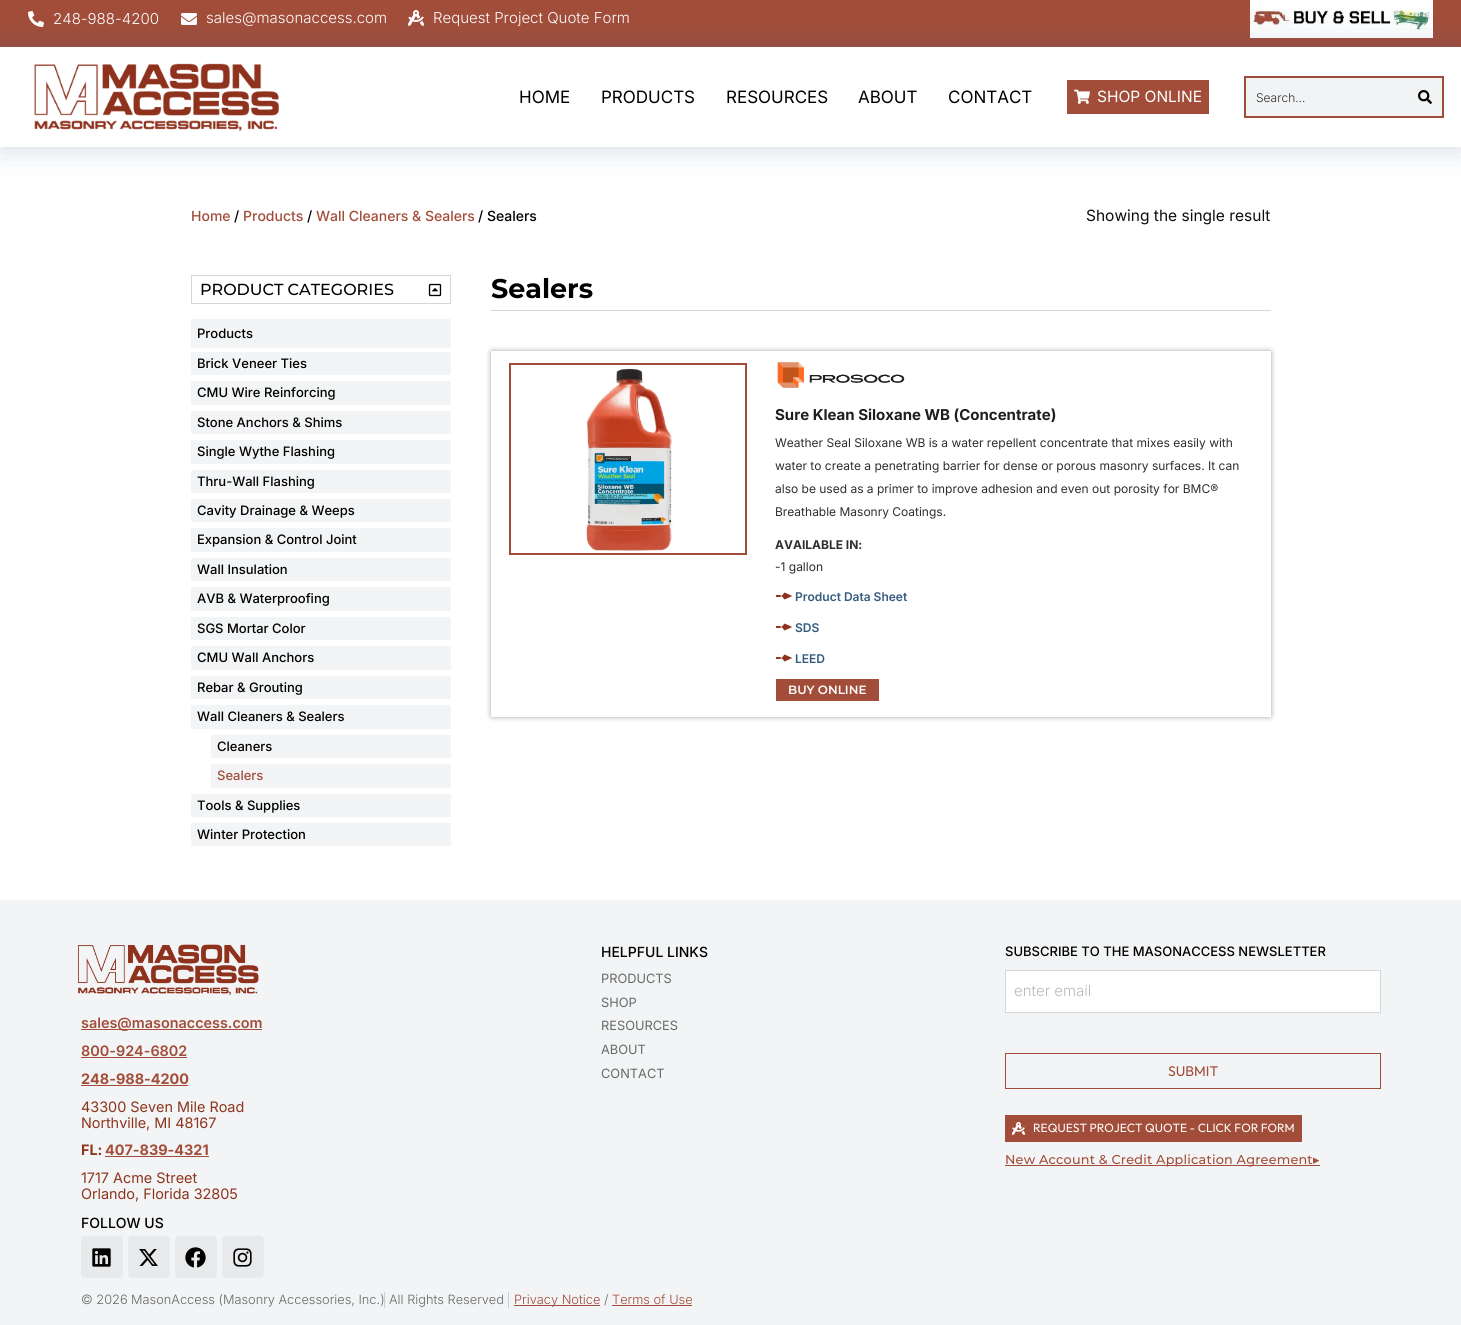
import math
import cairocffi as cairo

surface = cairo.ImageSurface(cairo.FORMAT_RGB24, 1461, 1325)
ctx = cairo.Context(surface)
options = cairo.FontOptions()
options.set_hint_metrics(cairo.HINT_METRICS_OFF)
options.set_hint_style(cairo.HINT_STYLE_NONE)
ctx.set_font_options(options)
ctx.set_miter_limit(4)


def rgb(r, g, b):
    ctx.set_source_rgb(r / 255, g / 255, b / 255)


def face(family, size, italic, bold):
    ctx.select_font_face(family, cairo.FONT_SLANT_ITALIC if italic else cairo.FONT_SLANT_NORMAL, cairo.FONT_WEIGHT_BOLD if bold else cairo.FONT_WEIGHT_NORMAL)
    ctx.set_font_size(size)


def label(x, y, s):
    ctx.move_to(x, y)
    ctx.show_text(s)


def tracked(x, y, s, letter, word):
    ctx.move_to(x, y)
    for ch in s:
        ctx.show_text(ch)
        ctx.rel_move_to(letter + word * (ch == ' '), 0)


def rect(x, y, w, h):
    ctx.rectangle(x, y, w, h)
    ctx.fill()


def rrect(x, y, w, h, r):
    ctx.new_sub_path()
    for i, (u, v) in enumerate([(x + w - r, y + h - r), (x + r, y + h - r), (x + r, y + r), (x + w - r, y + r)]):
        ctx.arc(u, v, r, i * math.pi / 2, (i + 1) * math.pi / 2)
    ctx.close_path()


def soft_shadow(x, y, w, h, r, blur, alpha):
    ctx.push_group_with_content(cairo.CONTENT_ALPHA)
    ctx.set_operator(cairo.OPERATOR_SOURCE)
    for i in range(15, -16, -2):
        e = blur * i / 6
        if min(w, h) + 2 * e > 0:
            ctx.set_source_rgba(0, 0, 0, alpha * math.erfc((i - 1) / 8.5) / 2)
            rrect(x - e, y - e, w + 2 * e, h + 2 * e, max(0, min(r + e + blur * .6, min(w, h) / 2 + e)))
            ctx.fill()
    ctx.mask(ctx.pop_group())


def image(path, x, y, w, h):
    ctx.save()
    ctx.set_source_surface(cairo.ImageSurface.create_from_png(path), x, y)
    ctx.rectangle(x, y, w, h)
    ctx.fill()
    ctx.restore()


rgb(255, 255, 255)
ctx.paint()
rgb(162, 77, 57)
rect(0, 0, 1461, 47)
image('image0.png', 28, 11, 16, 16)
face('Inter Light', 15, 0, 0)
rgb(255, 255, 255)
label(53, 24, '248-988-4200')
image('image1.png', 181, 13, 16, 12)
label(206, 23, 'sales@masonaccess.com')
image('image2.png', 408, 10, 16, 16)
label(433, 23, 'Request Project Quote Form')
image('image3.png', 1250, 0, 183, 38)
ctx.save()
ctx.set_fill_rule(cairo.FILL_RULE_EVEN_ODD)
ctx.new_path()
ctx.move_to(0, 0)
ctx.line_to(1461, 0)
ctx.line_to(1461, 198)
ctx.line_to(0, 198)
ctx.close_path()
ctx.move_to(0, 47)
ctx.line_to(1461, 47)
ctx.line_to(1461, 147)
ctx.line_to(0, 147)
ctx.close_path()
ctx.clip()
rgb(64, 92, 146)
soft_shadow(0, 47, 1461, 100, 0, 16.5, 0.25)
ctx.restore()
image('image4.png', 34, 63, 245, 68)
face('Inter', 17, 0, 0)
rgb(0, 0, 0)
label(519, 103, 'HOME')
label(601, 103, 'PRODUCTS')
label(726, 103, 'RESOURCES')
label(858, 103, 'ABOUT')
label(948, 103, 'CONTACT')
rgb(162, 77, 57)
rect(1067, 80, 142, 34)
image('image5.png', 1074, 89, 16, 15)
face('Inter', 15.5, 0, 0)
rgb(255, 255, 255)
label(1097, 102, 'SHOP ONLINE')
rgb(242, 243, 244)
ctx.rectangle(1245, 77, 198, 40)
ctx.fill_preserve()
rgb(162, 77, 57)
ctx.stroke()
face('Inter Light', 12, 0, 0)
rgb(46, 46, 46)
label(1256, 102, 'Search...')
image('image6.png', 1418, 90, 14, 14)
face('Inter Medium', 14, 0, 0)
rgb(162, 77, 57)
label(191, 221, 'Home')
rgb(0, 0, 0)
label(234, 221, '/')
rgb(162, 77, 57)
label(243, 221, 'Products')
rgb(0, 0, 0)
label(307, 221, '/')
rgb(162, 77, 57)
label(316, 221, 'Wall Cleaners & Sealers')
rgb(0, 0, 0)
label(478, 221, '/ Sealers')
face('Inter', 15.5, 0, 0)
rgb(13, 13, 13)
label(1086, 221, 'Showing the single result')
ctx.rectangle(191.5, 275.5, 259, 28)
rgb(212, 215, 218)
ctx.set_line_width(1)
ctx.stroke()
face('Montserrat Medium', 16, 0, 0)
rgb(0, 0, 0)
label(200, 295, 'PRODUCT CATEGORIES')
image('image7.png', 428, 283, 14, 14)
rgb(242, 244, 245)
rect(191, 319, 260, 29)
face('Inter Medium', 13, 0, 0)
rgb(0, 0, 0)
label(197, 338, 'Products')
rgb(242, 244, 245)
rect(191, 352, 260, 23)
rgb(0, 0, 0)
label(197, 368, 'Brick Veneer Ties')
rgb(242, 244, 245)
rect(191, 381, 260, 24)
rgb(0, 0, 0)
label(197, 397, 'CMU Wire Reinforcing')
rgb(242, 244, 245)
rect(191, 411, 260, 23)
rgb(0, 0, 0)
label(197, 427, 'Stone Anchors & Shims')
rgb(242, 244, 245)
rect(191, 440, 260, 24)
rgb(0, 0, 0)
label(197, 456, 'Single Wythe Flashing')
rgb(242, 244, 245)
rect(191, 470, 260, 23)
rgb(0, 0, 0)
label(197, 486, 'Thru-Wall Flashing')
rgb(242, 244, 245)
rect(191, 499, 260, 23)
rgb(0, 0, 0)
label(197, 515, 'Cavity Drainage & Weeps')
rgb(242, 244, 245)
rect(191, 528, 260, 24)
rgb(0, 0, 0)
label(197, 544, 'Expansion & Control Joint')
rgb(242, 244, 245)
rect(191, 558, 260, 23)
rgb(0, 0, 0)
label(197, 574, 'Wall Insulation')
rgb(242, 244, 245)
rect(191, 587, 260, 24)
rgb(0, 0, 0)
label(197, 603, 'AVB & Waterproofing')
rgb(242, 244, 245)
rect(191, 617, 260, 23)
rgb(0, 0, 0)
label(197, 633, 'SGS Mortar Color')
rgb(242, 244, 245)
rect(191, 646, 260, 24)
rgb(0, 0, 0)
label(197, 662, 'CMU Wall Anchors')
rgb(242, 244, 245)
rect(191, 676, 260, 23)
rgb(0, 0, 0)
label(197, 692, 'Rebar & Grouting')
rgb(242, 244, 245)
rect(191, 705, 260, 24)
rgb(0, 0, 0)
label(197, 721, 'Wall Cleaners & Sealers')
rgb(242, 244, 245)
rect(211, 735, 240, 23)
rgb(0, 0, 0)
label(217, 751, 'Cleaners')
rgb(242, 244, 245)
rect(211, 764, 240, 24)
rgb(162, 77, 57)
label(217, 780, 'Sealers')
rgb(242, 244, 245)
rect(191, 794, 260, 23)
rgb(0, 0, 0)
label(197, 810, 'Tools & Supplies')
rgb(242, 244, 245)
rect(191, 823, 260, 23)
rgb(0, 0, 0)
label(197, 839, 'Winter Protection')
rgb(212, 215, 218)
rect(491, 310, 780, 1)
face('Montserrat', 27, 0, 1)
rgb(0, 0, 0)
label(491, 298, 'Sealers')
ctx.save()
ctx.set_fill_rule(cairo.FILL_RULE_EVEN_ODD)
ctx.new_path()
ctx.move_to(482, 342)
ctx.line_to(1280, 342)
ctx.line_to(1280, 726)
ctx.line_to(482, 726)
ctx.close_path()
ctx.move_to(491, 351)
ctx.line_to(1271, 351)
ctx.line_to(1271, 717)
ctx.line_to(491, 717)
ctx.close_path()
ctx.clip()
rgb(0, 0, 0)
soft_shadow(492, 352, 778, 364, 0, 3, 0.5)
ctx.restore()
ctx.rectangle(510, 364, 236, 190)
rgb(162, 77, 57)
ctx.set_line_width(2)
ctx.stroke()
image('image8.png', 586, 368, 88, 183)
image('image9.png', 777, 362, 128, 26)
face('Inter', 15, 0, 1)
rgb(30, 30, 30)
label(775, 420, 'Sure Klean Siloxane WB (Concentrate)')
face('Inter', 12, 0, 0)
rgb(46, 46, 46)
label(775, 447, 'Weather Seal Siloxane WB is a water repellent concentrate that mixes easily with')
label(775, 470, 'water to create a penetrating barrier for dense or porous masonry surfaces. It can')
label(775, 493, 'also be used as a primer to improve adhesion and even out porosity for BMC®')
label(775, 516, 'Breathable Masonry Coatings.')
face('Inter', 12, 0, 1)
label(775, 549, 'AVAILABLE IN:')
face('Inter', 12, 0, 0)
label(775, 571, '-1 gallon')
image('image10.png', 776, 592, 16, 8)
face('Inter SemiBold', 12, 0, 0)
rgb(52, 91, 126)
label(795, 601, 'Product Data Sheet')
image('image10.png', 776, 623, 16, 8)
label(795, 632, 'SDS')
image('image10.png', 776, 654, 16, 8)
label(795, 663, 'LEED')
rgb(162, 77, 57)
rect(776, 679, 103, 22)
face('Montserrat SemiBold', 12, 0, 0)
rgb(255, 255, 255)
label(788, 694, 'BUY ONLINE')
rgb(243, 244, 245)
rect(0, 900, 1461, 425)
image('image11.png', 77, 944, 182, 51)
rgb(162, 77, 57)
rect(81, 1029, 181, 1)
face('Inter SemiBold', 14.4, 0, 0)
label(81, 1028, 'sales@masonaccess.com')
label(81, 1056, '800-924-6802')
rect(81, 1057, 106, 1)
face('Inter', 14.4, 0, 1)
label(81, 1084, '248-988-4200')
rect(81, 1085, 107, 1)
face('Inter', 14.4, 0, 0)
rgb(140, 52, 28)
label(81, 1112, '43300 Seven Mile Road')
label(81, 1128, 'Northville, MI 48167')
face('Inter', 14.4, 0, 1)
label(81, 1155, 'FL:')
rgb(162, 77, 57)
label(105, 1155, '407-839-4321')
rect(105, 1156, 104, 1)
face('Inter', 14.4, 0, 0)
rgb(140, 52, 28)
label(81, 1183, '1717 Acme Street')
label(81, 1199, 'Orlando, Florida 32805')
face('Inter Medium', 14, 0, 0)
rgb(0, 0, 0)
label(81, 1228, 'FOLLOW US')
rgb(231, 233, 235)
rrect(81, 1236, 42, 42, 4)
ctx.fill()
image('image12.png', 92, 1248, 19, 19)
rrect(128, 1236, 42, 42, 4)
ctx.fill()
image('image13.png', 139, 1249, 19, 17)
rrect(175, 1236, 42, 42, 4)
ctx.fill()
image('image14.png', 185, 1247, 21, 21)
rrect(222, 1236, 42, 42, 4)
ctx.fill()
image('image15.png', 233, 1248, 19, 19)
rgb(0, 0, 0)
label(601, 957, 'HELPFUL LINKS')
face('Inter', 12.8, 0, 0)
rgb(104, 105, 105)
label(601, 983, 'PRODUCTS')
label(601, 1007, 'SHOP')
label(601, 1030, 'RESOURCES')
label(601, 1054, 'ABOUT')
label(601, 1078, 'CONTACT')
face('Inter Medium', 13, 0, 0)
rgb(0, 0, 0)
label(1005, 956, 'SUBSCRIBE TO THE MASONACCESS NEWSLETTER')
rgb(255, 255, 255)
ctx.rectangle(1005.5, 970.5, 375, 42)
ctx.fill_preserve()
rgb(212, 215, 218)
ctx.set_line_width(1)
ctx.stroke()
face('Inter Light', 15, 0, 0)
rgb(186, 186, 186)
label(1014, 996, 'enter email')
ctx.rectangle(1005.5, 1053.5, 375, 35)
rgb(162, 77, 57)
ctx.stroke()
face('Outfit', 14, 0, 0)
label(1168, 1076, 'SUBMIT')
rect(1005, 1115, 297, 27)
image('image16.png', 1012, 1122, 13, 13)
face('Outfit', 12, 0, 0)
rgb(255, 255, 255)
label(1033, 1132, 'REQUEST PROJECT QUOTE - CLICK FOR FORM')
rgb(162, 77, 57)
rect(1005, 1165, 315, 1)
face('Montserrat Medium', 12.8, 0, 0)
tracked(1005, 1164, 'New Account & Credit Application Agreement', 0.2, 0)
face('DejaVu Sans', 12.8, 0, 0)
tracked(1313, 1164, '▸', 0.2, 0)
face('Inter Light', 12.8, 0, 0)
rgb(104, 105, 105)
label(81, 1304, '© 2026')
label(131, 1304, 'MasonAccess (Masonry Accessories, Inc.)')
rgb(202, 206, 210)
rect(384, 1292, 1, 16)
rgb(104, 105, 105)
label(389, 1304, 'All Rights Reserved')
rgb(202, 206, 210)
rect(508, 1292, 1, 16)
rgb(162, 77, 57)
rect(514, 1305, 86, 1)
label(514, 1304, 'Privacy Notice')
rgb(104, 105, 105)
label(604, 1304, '/')
rgb(162, 77, 57)
label(612, 1304, 'Terms of Use')
rect(612, 1305, 80, 1)
surface.write_to_png('render.png')
